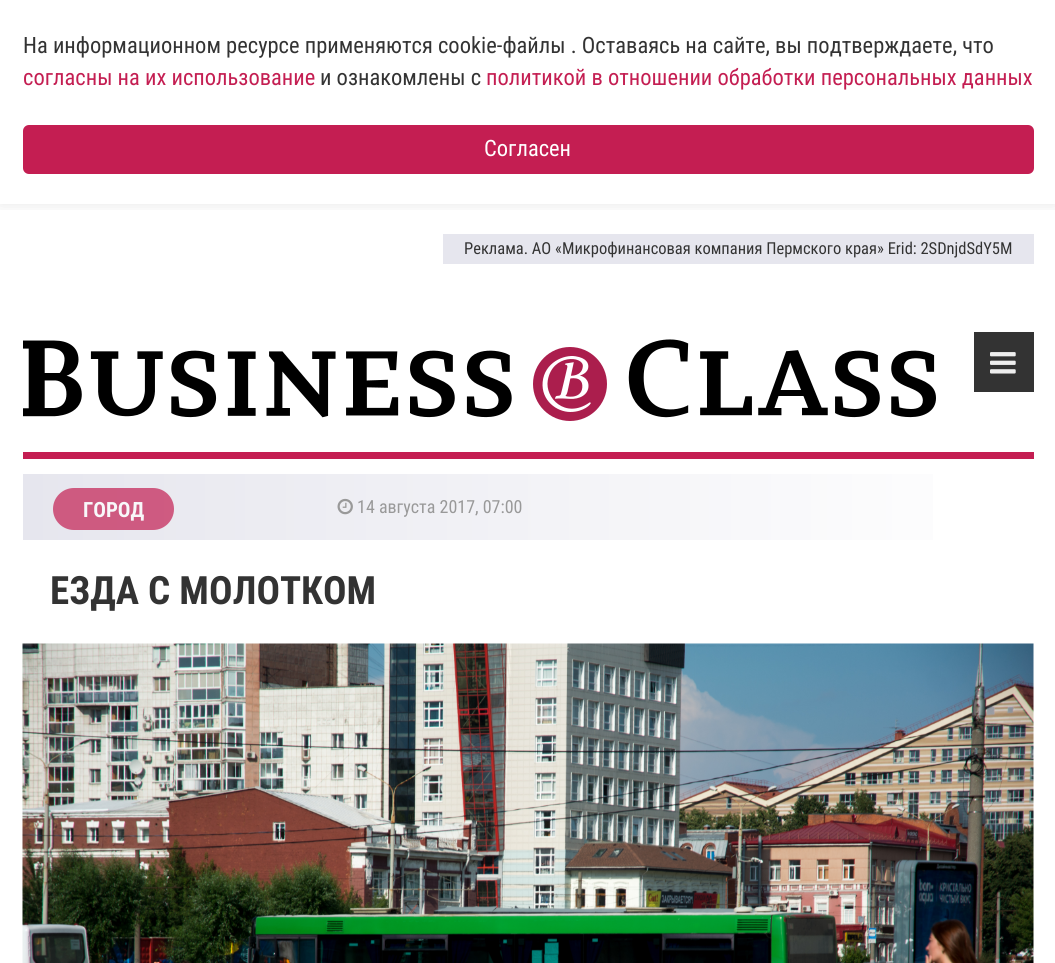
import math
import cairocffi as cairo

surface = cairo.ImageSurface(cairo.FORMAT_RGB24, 1055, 963)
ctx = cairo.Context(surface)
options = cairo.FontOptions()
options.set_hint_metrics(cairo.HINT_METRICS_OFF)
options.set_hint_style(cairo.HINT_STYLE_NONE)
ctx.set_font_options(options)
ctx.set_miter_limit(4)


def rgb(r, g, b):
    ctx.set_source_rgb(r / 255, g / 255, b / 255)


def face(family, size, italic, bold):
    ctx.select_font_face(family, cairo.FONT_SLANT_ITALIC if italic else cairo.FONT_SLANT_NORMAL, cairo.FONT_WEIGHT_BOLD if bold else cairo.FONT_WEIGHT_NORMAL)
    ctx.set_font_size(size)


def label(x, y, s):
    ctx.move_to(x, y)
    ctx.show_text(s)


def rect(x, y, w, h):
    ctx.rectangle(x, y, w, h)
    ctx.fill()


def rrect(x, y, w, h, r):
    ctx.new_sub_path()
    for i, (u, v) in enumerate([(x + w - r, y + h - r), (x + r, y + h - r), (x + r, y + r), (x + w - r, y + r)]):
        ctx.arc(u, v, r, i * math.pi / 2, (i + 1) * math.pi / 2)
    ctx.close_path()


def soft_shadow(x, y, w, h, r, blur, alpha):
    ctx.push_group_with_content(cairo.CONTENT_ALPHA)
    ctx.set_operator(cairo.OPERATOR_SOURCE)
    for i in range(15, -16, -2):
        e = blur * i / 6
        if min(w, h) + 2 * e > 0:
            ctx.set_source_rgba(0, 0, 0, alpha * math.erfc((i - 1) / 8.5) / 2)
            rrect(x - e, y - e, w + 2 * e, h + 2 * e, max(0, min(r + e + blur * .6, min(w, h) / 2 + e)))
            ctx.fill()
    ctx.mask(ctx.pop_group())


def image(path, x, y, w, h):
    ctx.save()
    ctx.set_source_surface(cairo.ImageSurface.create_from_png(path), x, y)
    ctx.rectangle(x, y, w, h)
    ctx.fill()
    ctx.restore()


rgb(255, 255, 255)
ctx.paint()
ctx.save()
ctx.rectangle(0, 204, 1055, 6)
ctx.clip()
rgb(0, 0, 0)
soft_shadow(0, 0, 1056, 204, 0, 7.5, 0.1)
ctx.restore()
face('Roboto Condensed', 22.5, 0, 0)
rgb(51, 51, 51)
label(23, 53, 'На информационном ресурсе применяются cookie-файлы . Оставаясь на сайте, вы подтверждаете, что')
rgb(196, 30, 82)
label(23, 85, 'согласны на их использование')
rgb(51, 51, 51)
label(320, 85, 'и ознакомлены с')
rgb(196, 30, 82)
label(486, 85, 'политикой в отношении обработки персональных данных')
rrect(23, 125, 1011, 49, 6)
ctx.fill()
rgb(255, 255, 255)
label(484, 156, 'Согласен')
rgb(230, 230, 238)
rect(443, 234, 591, 30)
face('Roboto Condensed', 16.5, 0, 0)
rgb(51, 51, 51)
label(464, 254, 'Реклама. АО «Микрофинансовая компания Пермского края» Erid: 2SDnjdSdY5M')
image('image0.png', 23, 339, 913, 82)
rect(974, 332, 60, 60)
image('image1.png', 990, 352, 26, 22)
rgb(196, 30, 82)
rect(23, 452, 1011, 7)
gradient = cairo.LinearGradient(23, 507, 1034, 507)
gradient.add_color_stop_rgba(0, 0.902, 0.902, 0.933, 1)
gradient.add_color_stop_rgba(1, 1, 1, 1, 1)
ctx.set_source(gradient)
rect(23, 474, 910, 66)
ctx.set_source_rgba(0.769, 0.118, 0.322, 0.7)
rrect(53, 488, 121, 42, 21)
ctx.fill()
face('Roboto Condensed', 21, 0, 1)
rgb(248, 248, 250)
label(83, 517, 'ГОРОД')
image('image2.png', 337, 498, 16, 17)
face('Roboto Condensed', 18, 0, 0)
rgb(153, 153, 153)
label(357, 513, '14 августа 2017, 07:00')
face('Roboto Condensed', 39, 0, 1)
rgb(51, 51, 51)
label(50, 604, 'ЕЗДА С МОЛОТКОМ')
image('image3.png', 22, 643, 1012, 320)
surface.write_to_png('render.png')
